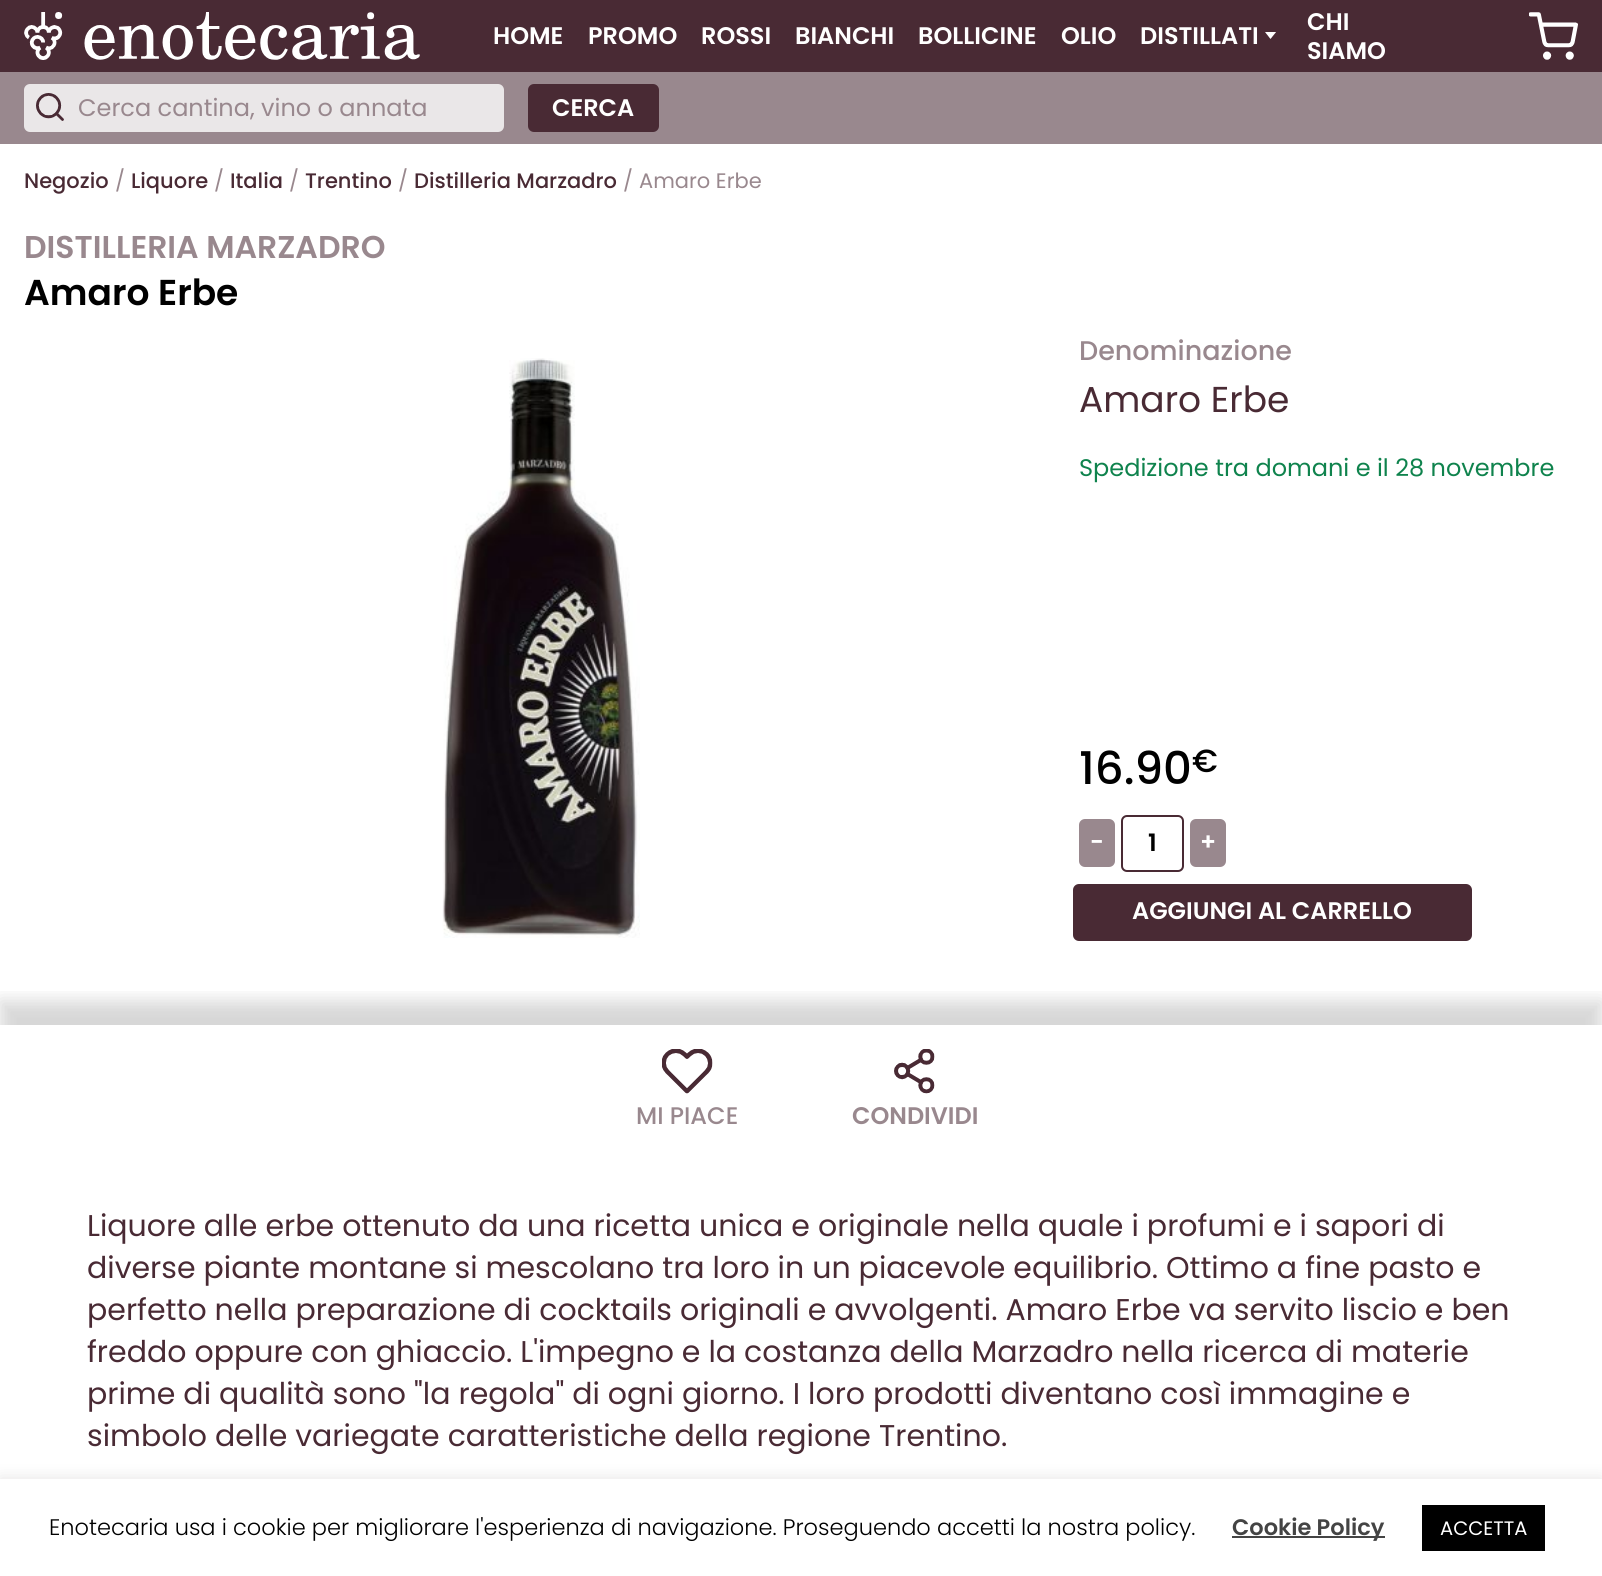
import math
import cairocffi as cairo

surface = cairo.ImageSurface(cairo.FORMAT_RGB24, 1602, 1576)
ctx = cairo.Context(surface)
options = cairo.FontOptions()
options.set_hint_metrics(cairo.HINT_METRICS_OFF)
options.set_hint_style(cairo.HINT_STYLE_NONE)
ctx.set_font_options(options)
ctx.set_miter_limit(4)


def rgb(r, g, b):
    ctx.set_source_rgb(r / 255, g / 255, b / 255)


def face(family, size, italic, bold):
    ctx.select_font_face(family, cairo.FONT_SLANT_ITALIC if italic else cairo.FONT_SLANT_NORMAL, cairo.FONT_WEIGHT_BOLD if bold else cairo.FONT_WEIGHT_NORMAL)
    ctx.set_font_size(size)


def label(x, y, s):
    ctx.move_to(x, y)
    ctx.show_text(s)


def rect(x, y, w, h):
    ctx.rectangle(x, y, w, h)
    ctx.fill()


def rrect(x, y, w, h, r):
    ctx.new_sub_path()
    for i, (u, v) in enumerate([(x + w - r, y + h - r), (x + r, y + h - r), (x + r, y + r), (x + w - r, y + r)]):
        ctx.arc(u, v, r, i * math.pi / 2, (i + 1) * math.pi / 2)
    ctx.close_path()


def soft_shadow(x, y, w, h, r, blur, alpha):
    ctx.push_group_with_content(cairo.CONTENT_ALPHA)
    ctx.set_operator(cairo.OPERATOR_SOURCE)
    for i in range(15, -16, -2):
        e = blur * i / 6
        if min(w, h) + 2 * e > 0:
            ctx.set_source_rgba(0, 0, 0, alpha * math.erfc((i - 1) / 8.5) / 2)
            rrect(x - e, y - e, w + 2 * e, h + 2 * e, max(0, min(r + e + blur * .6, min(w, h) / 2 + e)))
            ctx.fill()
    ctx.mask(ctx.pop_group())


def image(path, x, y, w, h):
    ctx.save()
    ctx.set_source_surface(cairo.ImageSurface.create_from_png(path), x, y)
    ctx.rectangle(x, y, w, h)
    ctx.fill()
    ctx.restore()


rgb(255, 255, 255)
ctx.paint()
rgb(73, 42, 52)
rect(0, 0, 1602, 72)
image('image0.png', 24, 12, 396, 48)
face('Poppins SemiBold', 24, 0, 0)
rgb(255, 255, 255)
label(493, 44, 'HOME')
label(588, 44, 'PROMO')
label(701, 44, 'ROSSI')
label(795, 44, 'BIANCHI')
label(918, 44, 'BOLLICINE')
label(1061, 44, 'OLIO')
label(1140, 44, 'DISTILLATI')
image('image1.png', 1265, 32, 11, 7)
label(1307, 30, 'CHI')
label(1307, 59, 'SIAMO')
image('image2.png', 1529, 12, 49, 48)
rgb(153, 136, 142)
rect(0, 72, 1602, 72)
rgb(234, 231, 232)
rrect(24, 84, 480, 48, 6)
ctx.fill()
image('image3.png', 36, 93, 28, 28)
face('Poppins', 24, 0, 0)
rgb(153, 136, 142)
label(78, 116, 'Cerca cantina, vino o annata')
rgb(73, 42, 52)
rrect(528, 84, 131, 48, 6)
ctx.fill()
face('Poppins SemiBold', 24, 0, 0)
rgb(255, 255, 255)
label(552, 116, 'CERCA')
face('Poppins Medium', 21, 0, 0)
rgb(73, 42, 52)
label(24, 188, 'Negozio')
face('Poppins', 21, 0, 0)
rgb(153, 136, 142)
label(115, 188, '/')
face('Poppins Medium', 21, 0, 0)
rgb(73, 42, 52)
label(131, 188, 'Liquore')
face('Poppins', 21, 0, 0)
rgb(153, 136, 142)
label(214, 188, '/')
face('Poppins Medium', 21, 0, 0)
rgb(73, 42, 52)
label(230, 188, 'Italia')
face('Poppins', 21, 0, 0)
rgb(153, 136, 142)
label(289, 188, '/')
face('Poppins Medium', 21, 0, 0)
rgb(73, 42, 52)
label(305, 188, 'Trentino')
face('Poppins', 21, 0, 0)
rgb(153, 136, 142)
label(398, 188, '/')
face('Poppins Medium', 21, 0, 0)
rgb(73, 42, 52)
label(414, 188, 'Distilleria Marzadro')
face('Poppins', 21, 0, 0)
rgb(153, 136, 142)
label(623, 188, '/')
label(639, 188, 'Amaro Erbe')
face('Poppins SemiBold', 31.5, 0, 0)
label(24, 258, 'DISTILLERIA MARZADRO')
face('Poppins SemiBold', 36, 0, 0)
rgb(0, 0, 0)
label(24, 305, 'Amaro Erbe')
image('image4.png', 442, 358, 198, 580)
face('Poppins Medium', 27, 0, 0)
rgb(153, 136, 142)
label(1079, 360, 'Denominazione')
face('Poppins', 36, 0, 0)
rgb(73, 42, 52)
label(1079, 412, 'Amaro Erbe')
face('Poppins', 24, 0, 0)
rgb(15, 131, 77)
label(1079, 476, 'Spedizione tra domani e il 28 novembre')
face('Poppins Medium', 45, 0, 0)
rgb(0, 0, 0)
label(1079, 784, '16.90')
face('Poppins Medium', 32, 0, 0)
label(1192, 772, '€')
rgb(153, 136, 142)
rrect(1079, 819, 36, 48, 6)
ctx.fill()
face('Poppins SemiBold', 24, 0, 0)
rgb(255, 255, 255)
label(1090, 850, '-')
rrect(1122, 816, 61, 55, 5)
rgb(73, 42, 52)
ctx.stroke()
rgb(0, 0, 0)
label(1148, 851, '1')
rgb(153, 136, 142)
rrect(1190, 819, 36, 48, 6)
ctx.fill()
rgb(255, 255, 255)
label(1200, 850, '+')
rgb(73, 42, 52)
rrect(1073, 884, 399, 57, 6)
ctx.fill()
rgb(255, 255, 255)
label(1132, 919, 'AGGIUNGI AL CARRELLO')
ctx.save()
ctx.rectangle(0, 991, 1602, 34)
ctx.clip()
rgb(0, 0, 0)
soft_shadow(0, 1001, 1602, 132, 0, 9, 0.16)
ctx.restore()
image('image5.png', 662, 1049, 51, 45)
face('Poppins Medium', 24, 0, 0)
rgb(153, 136, 142)
label(636, 1124, 'MI PIACE')
image('image6.png', 894, 1049, 41, 45)
face('Poppins SemiBold', 24, 0, 0)
label(852, 1124, 'CONDIVIDI')
face('Poppins', 30, 0, 0)
rgb(73, 42, 52)
label(87, 1236, 'Liquore alle erbe ottenuto da una ricetta unica e originale nella quale i profumi e i sapori di')
label(87, 1278, 'diverse piante montane si mescolano tra loro in un piacevole equilibrio. Ottimo a fine pasto e')
label(87, 1320, 'perfetto nella preparazione di cocktails originali e avvolgenti. Amaro Erbe va servito liscio e ben')
label(87, 1362, 'freddo oppure con ghiaccio. L\'impegno e la costanza della Marzadro nella ricerca di materie')
label(87, 1404, 'prime di qualità sono "la regola" di ogni giorno. I loro prodotti diventano così immagine e')
label(87, 1446, 'simbolo delle variegate caratteristiche della regione Trentino.')
rgb(172, 171, 171)
soft_shadow(0, 1478, 1602, 97, 0, 7.5, 0.3)
rgb(255, 255, 255)
rect(0, 1479, 1602, 97)
face('Poppins Light', 22.5, 0, 0)
rgb(0, 0, 0)
label(49, 1535, 'Enotecaria usa i cookie per migliorare l\'esperienza di navigazione. Proseguendo accetti la nostra policy.')
rgb(68, 68, 68)
rect(1232, 1536, 153, 2)
face('Poppins SemiBold', 22.5, 0, 0)
label(1232, 1535, 'Cookie Policy')
rgb(0, 0, 0)
rect(1422, 1505, 123, 46)
face('Poppins', 19.5, 0, 0)
rgb(255, 255, 255)
label(1440, 1535, 'ACCETTA')
surface.write_to_png('render.png')
